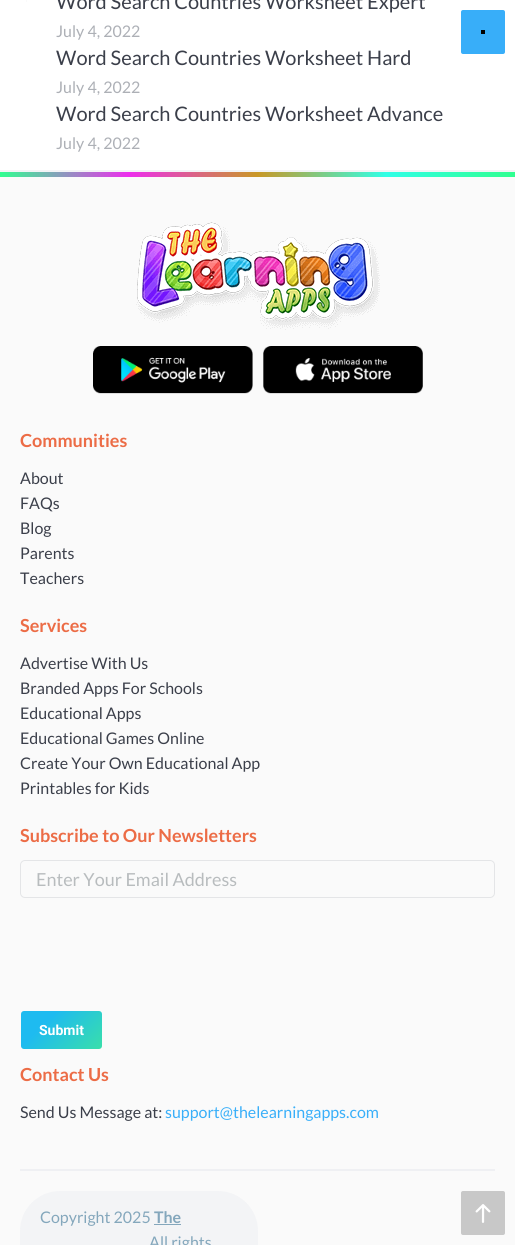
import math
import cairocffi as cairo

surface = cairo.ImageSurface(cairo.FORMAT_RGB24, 515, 1245)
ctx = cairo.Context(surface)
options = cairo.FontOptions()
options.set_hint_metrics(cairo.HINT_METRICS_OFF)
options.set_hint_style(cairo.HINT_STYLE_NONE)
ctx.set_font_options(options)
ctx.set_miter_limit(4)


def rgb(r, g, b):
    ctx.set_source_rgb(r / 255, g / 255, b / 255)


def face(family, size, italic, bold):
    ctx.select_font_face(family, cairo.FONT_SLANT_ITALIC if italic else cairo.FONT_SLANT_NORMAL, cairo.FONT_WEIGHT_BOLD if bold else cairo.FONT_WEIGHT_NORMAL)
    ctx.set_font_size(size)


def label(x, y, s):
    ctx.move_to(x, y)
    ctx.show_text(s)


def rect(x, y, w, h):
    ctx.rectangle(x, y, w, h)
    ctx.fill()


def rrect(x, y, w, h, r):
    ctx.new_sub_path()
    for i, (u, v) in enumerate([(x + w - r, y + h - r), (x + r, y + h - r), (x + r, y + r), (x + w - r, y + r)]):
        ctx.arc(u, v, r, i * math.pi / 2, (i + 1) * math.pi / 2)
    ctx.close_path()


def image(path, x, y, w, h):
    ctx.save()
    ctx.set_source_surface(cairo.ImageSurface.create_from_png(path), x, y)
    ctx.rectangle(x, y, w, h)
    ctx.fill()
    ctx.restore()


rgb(250, 250, 250)
ctx.paint()
rgb(255, 255, 255)
rect(0, 0, 515, 170)
rgb(243, 244, 246)
rect(0, 170, 515, 2)
rgb(250, 250, 250)
rect(26, 0, 1, 2)
face('Lato', 20, 0, 0)
rgb(59, 63, 74)
label(56, 9, 'Word Search Countries Worksheet Expert')
face('Lato', 16, 0, 0)
rgb(173, 176, 182)
label(56, 37, 'July 4, 2022')
face('Lato', 20, 0, 0)
rgb(59, 63, 74)
label(56, 65, 'Word Search Countries Worksheet Hard')
face('Lato', 16, 0, 0)
rgb(173, 176, 182)
label(56, 93, 'July 4, 2022')
face('Lato', 20, 0, 0)
rgb(59, 63, 74)
label(56, 121, 'Word Search Countries Worksheet Advance')
face('Lato', 16, 0, 0)
rgb(173, 176, 182)
label(56, 149, 'July 4, 2022')
rgb(56, 174, 249)
rrect(461, 10, 44, 44, 2)
ctx.fill()
rgb(0, 0, 0)
rect(481, 30, 4, 4)
gradient = cairo.LinearGradient(0, 175, 515, 174)
gradient.add_color_stop_rgba(0, 0.188, 1, 0.565, 1)
gradient.add_color_stop_rgba(0.25, 0.929, 0.176, 0.929, 1)
gradient.add_color_stop_rgba(0.5, 0.788, 0.596, 0.149, 1)
gradient.add_color_stop_rgba(0.75, 0.188, 1, 0.902, 1)
gradient.add_color_stop_rgba(1, 0.188, 1, 0.565, 1)
ctx.set_source(gradient)
rect(0, 172, 515, 5)
image('image0.png', 136, 222, 244, 108)
image('image1.png', 93, 346, 160, 48)
image('image2.png', 263, 346, 160, 48)
face('Lato', 18, 0, 1)
rgb(236, 108, 70)
label(20, 447, 'Communities')
face('Lato', 16, 0, 0)
rgb(59, 63, 74)
label(20, 484, 'About')
label(20, 509, 'FAQs')
label(20, 534, 'Blog')
label(20, 559, 'Parents')
label(20, 584, 'Teachers')
face('Lato', 18, 0, 1)
rgb(236, 108, 70)
label(20, 632, 'Services')
face('Lato', 16, 0, 0)
rgb(59, 63, 74)
label(20, 669, 'Advertise With Us')
label(20, 694, 'Branded Apps For Schools')
label(20, 719, 'Educational Apps')
label(20, 744, 'Educational Games Online')
label(20, 769, 'Create Your Own Educational App')
label(20, 794, 'Printables for Kids')
face('Lato', 18, 0, 1)
rgb(236, 108, 70)
label(20, 842, 'Subscribe to Our Newsletters')
rrect(20.5, 860.5, 474, 37, 4.5)
rgb(228, 229, 231)
ctx.set_line_width(1)
ctx.stroke()
face('Lato', 18, 0, 0)
rgb(184, 188, 190)
label(36, 886, 'Enter Your Email Address')
gradient = cairo.LinearGradient(32, 1000, 91, 1060)
gradient.add_color_stop_rgba(0.3, 0.118, 0.733, 0.941, 1)
gradient.add_color_stop_rgba(1, 0.224, 0.875, 0.667, 1)
ctx.set_source(gradient)
rrect(21, 1011, 81, 38, 3)
ctx.fill()
face('Roboto', 14, 0, 1)
rgb(255, 255, 255)
label(39, 1035, 'Submit')
face('Lato', 18, 0, 1)
rgb(236, 108, 70)
label(20, 1081, 'Contact Us')
face('Lato', 16, 0, 0)
rgb(59, 63, 74)
label(20, 1118, 'Send Us Message at:')
rgb(57, 175, 249)
label(165, 1118, 'support@thelearningapps.com')
rgb(239, 240, 243)
rect(20, 1169, 475, 2)
rgb(243, 244, 246)
rrect(20, 1191, 238, 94, 40)
ctx.fill()
rgb(132, 167, 188)
label(40, 1223, 'Copyright 2025')
face('Lato', 16, 0, 1)
label(154, 1223, 'The')
rect(154, 1224, 27, 1)
face('Lato', 16, 0, 0)
label(149, 1248, 'All rights')
rgb(200, 200, 200)
rrect(461, 1191, 44, 44, 2)
ctx.fill()
image('image3.png', 475, 1204, 16, 19)
surface.write_to_png('render.png')
